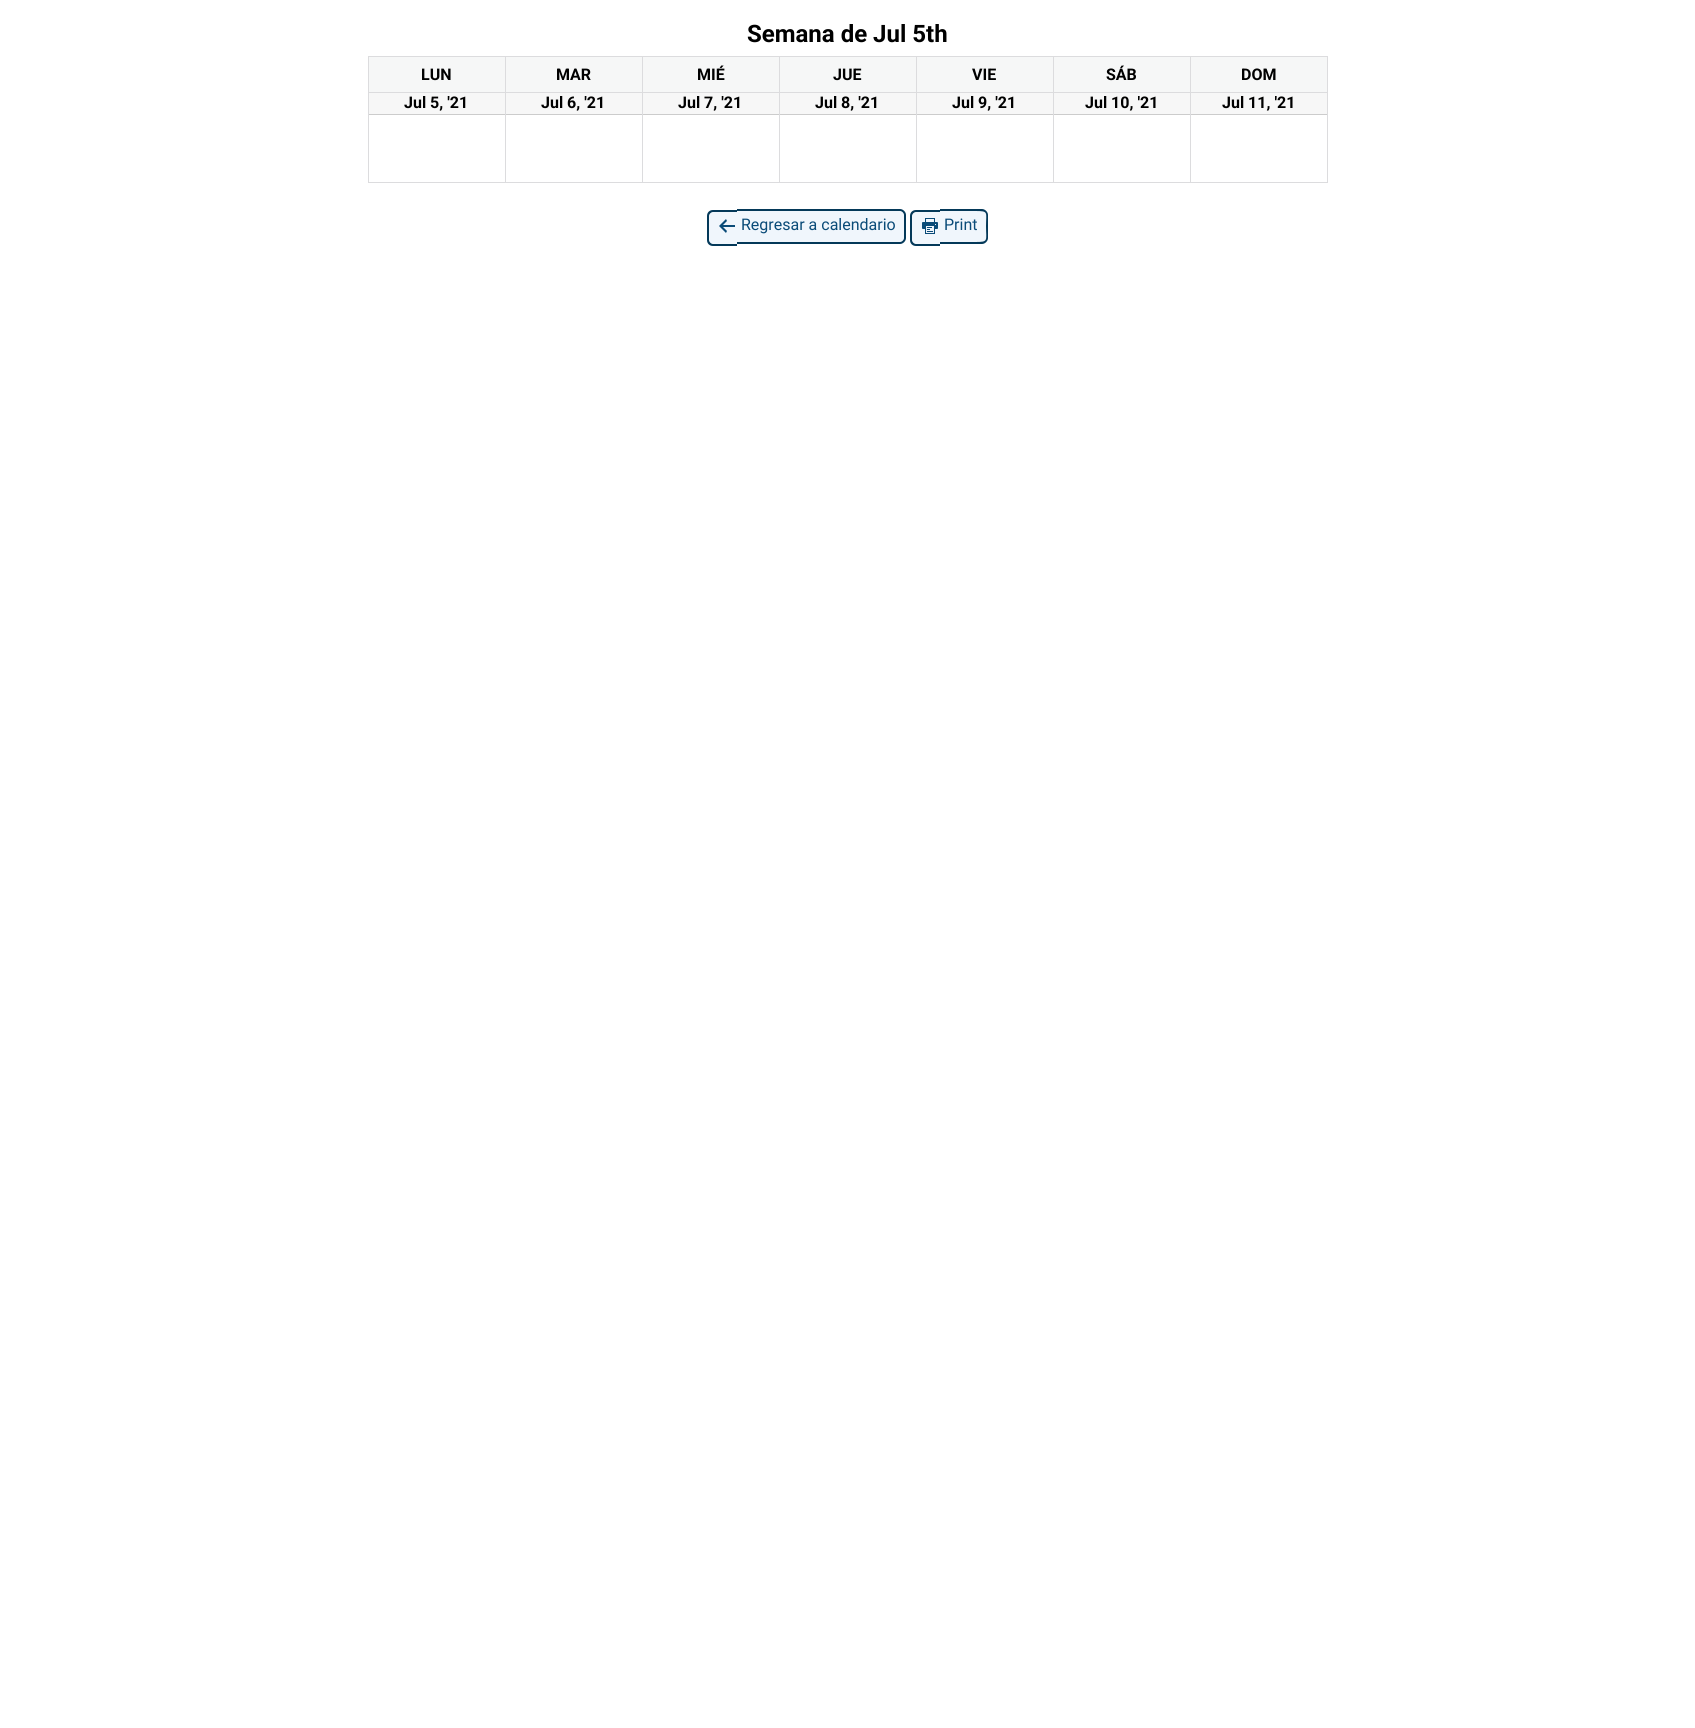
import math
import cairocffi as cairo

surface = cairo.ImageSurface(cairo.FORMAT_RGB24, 1695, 1728)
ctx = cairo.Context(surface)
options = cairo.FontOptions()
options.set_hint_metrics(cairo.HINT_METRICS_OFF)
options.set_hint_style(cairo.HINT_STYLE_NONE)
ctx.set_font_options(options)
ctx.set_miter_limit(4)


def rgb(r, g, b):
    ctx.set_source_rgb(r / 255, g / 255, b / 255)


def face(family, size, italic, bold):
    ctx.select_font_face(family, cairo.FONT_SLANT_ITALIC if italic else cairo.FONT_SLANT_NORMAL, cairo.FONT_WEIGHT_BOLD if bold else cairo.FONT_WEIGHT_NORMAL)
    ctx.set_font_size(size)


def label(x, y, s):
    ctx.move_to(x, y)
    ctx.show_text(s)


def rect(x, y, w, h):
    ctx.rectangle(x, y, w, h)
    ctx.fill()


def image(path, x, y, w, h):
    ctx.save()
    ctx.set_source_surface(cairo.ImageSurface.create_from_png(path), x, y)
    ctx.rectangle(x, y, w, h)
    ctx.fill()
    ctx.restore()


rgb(255, 255, 255)
ctx.paint()
face('Roboto', 24, 0, 1)
rgb(0, 0, 0)
label(747, 42, 'Semana de Jul 5th')
rgb(220, 220, 222)
rect(368, 56, 960, 1)
rect(368, 56, 1, 127)
rgb(246, 247, 247)
rect(369, 57, 136, 35)
face('Roboto', 16, 0, 1)
rgb(0, 0, 0)
label(421, 80, 'LUN')
rgb(246, 247, 247)
rect(506, 57, 136, 35)
rgb(220, 220, 222)
rect(1190, 92, 138, 1)
rect(1327, 56, 1, 127)
rect(1190, 182, 138, 1)
rect(1190, 92, 1, 91)
rect(1053, 92, 138, 1)
rect(1053, 182, 138, 1)
rect(1053, 92, 1, 91)
rect(916, 92, 138, 1)
rect(916, 182, 138, 1)
rect(916, 92, 1, 91)
rect(779, 92, 138, 1)
rect(779, 182, 138, 1)
rect(779, 92, 1, 91)
rect(642, 92, 138, 1)
rect(642, 182, 138, 1)
rect(642, 92, 1, 91)
rect(505, 92, 138, 1)
rect(505, 182, 138, 1)
rect(505, 92, 1, 91)
rect(368, 92, 138, 1)
rect(505, 56, 1, 37)
rgb(0, 0, 0)
label(556, 80, 'MAR')
rgb(246, 247, 247)
rect(643, 57, 136, 35)
rgb(220, 220, 222)
rect(642, 56, 1, 37)
rgb(0, 0, 0)
label(697, 80, 'MIÉ')
rgb(246, 247, 247)
rect(780, 57, 136, 35)
rgb(220, 220, 222)
rect(779, 56, 1, 37)
rgb(0, 0, 0)
label(833, 80, 'JUE')
rgb(246, 247, 247)
rect(917, 57, 136, 35)
rgb(220, 220, 222)
rect(916, 56, 1, 37)
rgb(0, 0, 0)
label(972, 80, 'VIE')
rgb(246, 247, 247)
rect(1054, 57, 136, 35)
rgb(220, 220, 222)
rect(1053, 56, 1, 37)
rgb(0, 0, 0)
label(1106, 80, 'SÁB')
rgb(246, 247, 247)
rect(1191, 57, 136, 35)
rgb(220, 220, 222)
rect(1190, 56, 1, 37)
rgb(0, 0, 0)
label(1241, 80, 'DOM')
rgb(220, 220, 222)
rect(368, 182, 138, 1)
rgb(247, 247, 247)
rect(369, 93, 136, 21)
rgb(204, 204, 204)
rect(369, 114, 136, 1)
rgb(0, 0, 0)
label(404, 108, 'Jul 5, \'21')
rgb(247, 247, 247)
rect(506, 93, 136, 21)
rgb(204, 204, 204)
rect(506, 114, 136, 1)
rgb(0, 0, 0)
label(541, 108, 'Jul 6, \'21')
rgb(247, 247, 247)
rect(643, 93, 136, 21)
rgb(204, 204, 204)
rect(643, 114, 136, 1)
rgb(0, 0, 0)
label(678, 108, 'Jul 7, \'21')
rgb(247, 247, 247)
rect(780, 93, 136, 21)
rgb(204, 204, 204)
rect(780, 114, 136, 1)
rgb(0, 0, 0)
label(815, 108, 'Jul 8, \'21')
rgb(247, 247, 247)
rect(917, 93, 136, 21)
rgb(204, 204, 204)
rect(917, 114, 136, 1)
rgb(0, 0, 0)
label(952, 108, 'Jul 9, \'21')
rgb(247, 247, 247)
rect(1054, 93, 136, 21)
rgb(204, 204, 204)
rect(1054, 114, 136, 1)
rgb(0, 0, 0)
label(1085, 108, 'Jul 10, \'21')
rgb(247, 247, 247)
rect(1191, 93, 136, 21)
rgb(204, 204, 204)
rect(1191, 114, 136, 1)
rgb(0, 0, 0)
label(1222, 108, 'Jul 11, \'21')
rgb(240, 246, 252)
ctx.new_path()
ctx.move_to(713, 210)
ctx.line_to(737, 210)
ctx.line_to(737, 246)
ctx.line_to(713, 246)
ctx.curve_to(709.5, 246, 707, 243.5, 707, 240)
ctx.line_to(707, 216)
ctx.curve_to(707, 212.5, 709.5, 210, 713, 210)
ctx.close_path()
ctx.fill()
rgb(4, 57, 89)
ctx.set_fill_rule(cairo.FILL_RULE_EVEN_ODD)
ctx.new_path()
ctx.move_to(713, 210)
ctx.line_to(737, 210)
ctx.line_to(737, 246)
ctx.line_to(713, 246)
ctx.curve_to(709.5, 246, 707, 243.5, 707, 240)
ctx.line_to(707, 216)
ctx.curve_to(707, 212.5, 709.5, 210, 713, 210)
ctx.close_path()
ctx.move_to(713, 212)
ctx.line_to(737, 212)
ctx.line_to(737, 244)
ctx.line_to(713, 244)
ctx.curve_to(711, 244, 709, 242, 709, 240)
ctx.line_to(709, 216)
ctx.curve_to(709, 214, 711, 212, 713, 212)
ctx.close_path()
ctx.fill()
rgb(240, 246, 252)
ctx.new_path()
ctx.move_to(737, 209)
ctx.line_to(900, 209)
ctx.curve_to(903.5, 209, 906, 211.5, 906, 215)
ctx.line_to(906, 238)
ctx.curve_to(906, 241.5, 903.5, 244, 900, 244)
ctx.line_to(737, 244)
ctx.close_path()
ctx.fill()
rgb(4, 57, 89)
ctx.new_path()
ctx.move_to(737, 209)
ctx.line_to(900, 209)
ctx.curve_to(903, 209, 906, 212, 906, 215)
ctx.line_to(906, 238)
ctx.curve_to(906, 241, 903, 244, 900, 244)
ctx.line_to(737, 244)
ctx.close_path()
ctx.move_to(737, 211)
ctx.line_to(900, 211)
ctx.curve_to(902, 211, 904, 213, 904, 215)
ctx.line_to(904, 238)
ctx.curve_to(904, 240, 902, 242, 900, 242)
ctx.line_to(737, 242)
ctx.close_path()
ctx.fill()
image('image0.png', 719, 219, 16, 14)
face('Roboto', 16, 0, 0)
rgb(10, 75, 120)
label(741, 230, 'Regresar a calendario')
rgb(240, 246, 252)
ctx.new_path()
ctx.move_to(916, 210)
ctx.line_to(940, 210)
ctx.line_to(940, 246)
ctx.line_to(916, 246)
ctx.curve_to(912.5, 246, 910, 243.5, 910, 240)
ctx.line_to(910, 216)
ctx.curve_to(910, 212.5, 912.5, 210, 916, 210)
ctx.close_path()
ctx.fill()
rgb(4, 57, 89)
ctx.new_path()
ctx.move_to(916, 210)
ctx.line_to(940, 210)
ctx.line_to(940, 246)
ctx.line_to(916, 246)
ctx.curve_to(912.5, 246, 910, 243.5, 910, 240)
ctx.line_to(910, 216)
ctx.curve_to(910, 212.5, 912.5, 210, 916, 210)
ctx.close_path()
ctx.move_to(916, 212)
ctx.line_to(940, 212)
ctx.line_to(940, 244)
ctx.line_to(916, 244)
ctx.curve_to(914, 244, 912, 242, 912, 240)
ctx.line_to(912, 216)
ctx.curve_to(912, 214, 914, 212, 916, 212)
ctx.close_path()
ctx.fill()
rgb(240, 246, 252)
ctx.new_path()
ctx.move_to(940, 209)
ctx.line_to(982, 209)
ctx.curve_to(985.5, 209, 988, 211.5, 988, 215)
ctx.line_to(988, 238)
ctx.curve_to(988, 241.5, 985.5, 244, 982, 244)
ctx.line_to(940, 244)
ctx.close_path()
ctx.fill()
rgb(4, 57, 89)
ctx.new_path()
ctx.move_to(940, 209)
ctx.line_to(982, 209)
ctx.curve_to(985, 209, 988, 212, 988, 215)
ctx.line_to(988, 238)
ctx.curve_to(988, 241, 985, 244, 982, 244)
ctx.line_to(940, 244)
ctx.close_path()
ctx.move_to(940, 211)
ctx.line_to(975, 211)
ctx.curve_to(989, 211, 986, 212, 986, 226)
ctx.curve_to(986, 241, 989, 242, 975, 242)
ctx.line_to(940, 242)
ctx.close_path()
ctx.fill()
image('image1.png', 922, 218, 16, 16)
rgb(10, 75, 120)
label(944, 230, 'Print')
surface.write_to_png('render.png')
